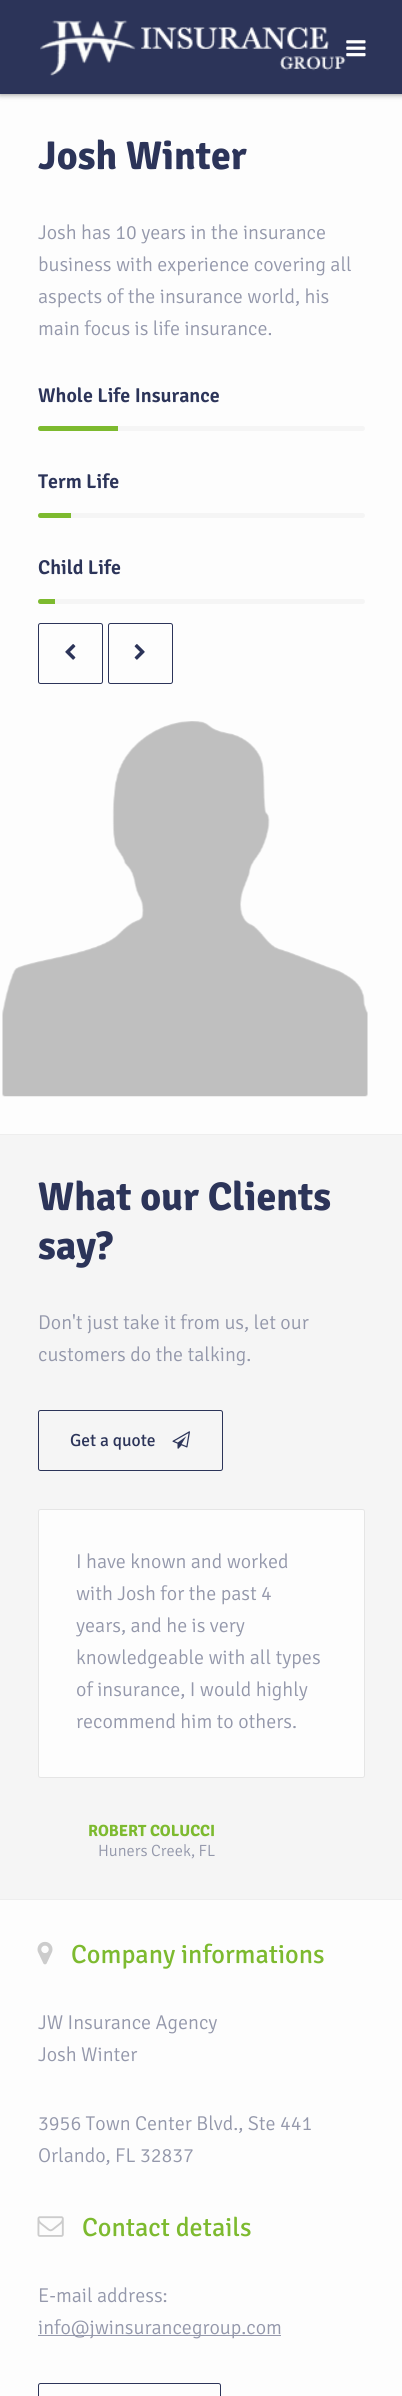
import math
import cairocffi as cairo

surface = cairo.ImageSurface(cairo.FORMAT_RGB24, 402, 2396)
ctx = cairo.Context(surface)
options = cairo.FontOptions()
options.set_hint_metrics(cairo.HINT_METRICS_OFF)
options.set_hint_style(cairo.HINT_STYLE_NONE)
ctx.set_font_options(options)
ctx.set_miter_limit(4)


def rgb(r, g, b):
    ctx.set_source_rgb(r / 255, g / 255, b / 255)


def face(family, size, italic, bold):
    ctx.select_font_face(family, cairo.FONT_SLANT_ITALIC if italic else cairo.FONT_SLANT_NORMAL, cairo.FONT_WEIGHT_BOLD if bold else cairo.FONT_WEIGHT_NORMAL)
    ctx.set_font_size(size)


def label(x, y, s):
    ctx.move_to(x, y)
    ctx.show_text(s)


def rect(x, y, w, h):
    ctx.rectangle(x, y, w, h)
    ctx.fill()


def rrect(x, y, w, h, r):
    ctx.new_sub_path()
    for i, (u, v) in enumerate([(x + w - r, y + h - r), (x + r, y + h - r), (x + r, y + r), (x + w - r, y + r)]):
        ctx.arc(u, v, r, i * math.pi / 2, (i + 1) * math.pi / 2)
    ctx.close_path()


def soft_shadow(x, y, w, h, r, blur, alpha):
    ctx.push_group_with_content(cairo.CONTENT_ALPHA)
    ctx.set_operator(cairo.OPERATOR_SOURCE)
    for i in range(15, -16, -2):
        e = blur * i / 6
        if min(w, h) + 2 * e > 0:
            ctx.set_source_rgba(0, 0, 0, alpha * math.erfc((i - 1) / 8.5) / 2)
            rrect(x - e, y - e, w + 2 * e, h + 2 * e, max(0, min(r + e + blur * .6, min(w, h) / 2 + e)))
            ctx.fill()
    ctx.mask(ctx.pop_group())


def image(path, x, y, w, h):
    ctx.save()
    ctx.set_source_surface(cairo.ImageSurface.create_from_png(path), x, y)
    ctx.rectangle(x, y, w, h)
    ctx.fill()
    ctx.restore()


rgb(253, 253, 253)
ctx.paint()
rgb(0, 0, 0)
soft_shadow(0, 0, 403, 94, 0, 3, 0.5)
rgb(44, 52, 89)
rect(0, 0, 402, 94)
image('image0.png', 40, 20, 306, 56)
image('image1.png', 346, 40, 20, 17)
rgb(238, 238, 238)
rect(0, 1134, 402, 1)
face('Signika', 40, 0, 1)
rgb(44, 52, 89)
label(38, 169, 'Josh Winter')
face('Signika Light', 20, 0, 0)
rgb(148, 152, 171)
label(38, 239, 'Josh has 10 years in the insurance')
label(38, 271, 'business with experience covering all')
label(38, 303, 'aspects of the insurance world, his')
label(38, 335, 'main focus is life insurance.')
face('Signika SemiBold', 20, 0, 0)
rgb(44, 52, 89)
label(38, 402, 'Whole Life Insurance')
rgb(245, 245, 245)
rrect(38, 426, 327, 5, 2.5)
ctx.fill()
rgb(125, 186, 47)
ctx.new_path()
ctx.move_to(40.5, 426)
ctx.line_to(118, 426)
ctx.line_to(118, 431)
ctx.line_to(40.5, 431)
ctx.curve_to(39, 431, 38, 430, 38, 428.5)
ctx.curve_to(38, 427, 39, 426, 40.5, 426)
ctx.close_path()
ctx.fill()
rgb(44, 52, 89)
label(38, 488, 'Term Life')
rgb(245, 245, 245)
rrect(38, 513, 327, 5, 2.5)
ctx.fill()
rgb(125, 186, 47)
ctx.new_path()
ctx.move_to(40.5, 513)
ctx.line_to(71, 513)
ctx.line_to(71, 518)
ctx.line_to(40.5, 518)
ctx.curve_to(39, 518, 38, 517, 38, 515.5)
ctx.curve_to(38, 514, 39, 513, 40.5, 513)
ctx.close_path()
ctx.fill()
rgb(44, 52, 89)
label(38, 574, 'Child Life')
rgb(245, 245, 245)
rrect(38, 599, 327, 5, 2.5)
ctx.fill()
rgb(125, 186, 47)
ctx.new_path()
ctx.move_to(40.5, 599)
ctx.line_to(55, 599)
ctx.line_to(55, 604)
ctx.line_to(40.5, 604)
ctx.curve_to(39, 604, 38, 603, 38, 601.5)
ctx.curve_to(38, 600, 39, 599, 40.5, 599)
ctx.close_path()
ctx.fill()
rrect(38.5, 623.5, 64, 60, 2)
rgb(44, 52, 89)
ctx.set_line_width(1)
ctx.stroke()
image('image2.png', 65, 644, 11, 16)
rrect(108.5, 623.5, 64, 60, 2)
ctx.stroke()
image('image3.png', 134, 644, 11, 16)
image('image4.png', 2, 721, 366, 376)
rgb(245, 245, 245)
rect(0, 1135, 402, 764)
rgb(238, 238, 238)
rect(0, 1899, 402, 1)
face('Signika', 40, 0, 1)
rgb(44, 52, 89)
label(38, 1210, 'What our Clients')
label(38, 1259, 'say?')
face('Signika Light', 20, 0, 0)
rgb(148, 152, 171)
label(38, 1329, 'Don\'t just take it from us, let our')
label(38, 1361, 'customers do the talking.')
rrect(38.5, 1410.5, 184, 60, 2)
rgb(44, 52, 89)
ctx.stroke()
face('Signika', 17.5, 0, 0)
label(70, 1446, 'Get a quote')
image('image5.png', 172, 1431, 18, 18)
rgb(253, 253, 253)
rrect(38.5, 1509.5, 326, 268, 2)
ctx.fill_preserve()
rgb(229, 229, 229)
ctx.stroke()
face('Signika Light', 20, 0, 0)
rgb(148, 152, 171)
label(76, 1568, 'I have known and worked')
label(76, 1600, 'with Josh for the past 4')
label(76, 1632, 'years, and he is very')
label(76, 1664, 'knowledgeable with all types')
label(76, 1696, 'of insurance, I would highly')
label(76, 1728, 'recommend him to others.')
face('Signika', 16.25, 0, 1)
rgb(125, 186, 47)
label(88, 1836, 'ROBERT COLUCCI')
face('Signika Light', 16.25, 0, 0)
rgb(148, 152, 171)
label(98, 1856, 'Huners Creek, FL')
image('image6.png', 37, 1941, 16, 24)
face('Signika', 26.25, 0, 0)
rgb(125, 186, 47)
label(71, 1963, 'Company informations')
face('Signika Light', 20, 0, 0)
rgb(148, 152, 171)
label(38, 2029, 'JW Insurance Agency')
label(38, 2061, 'Josh Winter')
label(38, 2130, '3956 Town Center Blvd., Ste 441')
label(38, 2162, 'Orlando, FL 32837')
image('image7.png', 37, 2216, 27, 21)
face('Signika', 26.25, 0, 0)
rgb(125, 186, 47)
label(82, 2236, 'Contact details')
face('Signika Light', 20, 0, 0)
rgb(148, 152, 171)
label(38, 2302, 'E-mail address:')
rect(38, 2335, 243, 1)
label(38, 2334, 'info@jwinsurancegroup.com')
rrect(38.5, 2383.5, 182, 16, 2)
rgb(44, 52, 89)
ctx.stroke()
surface.write_to_png('render.png')
